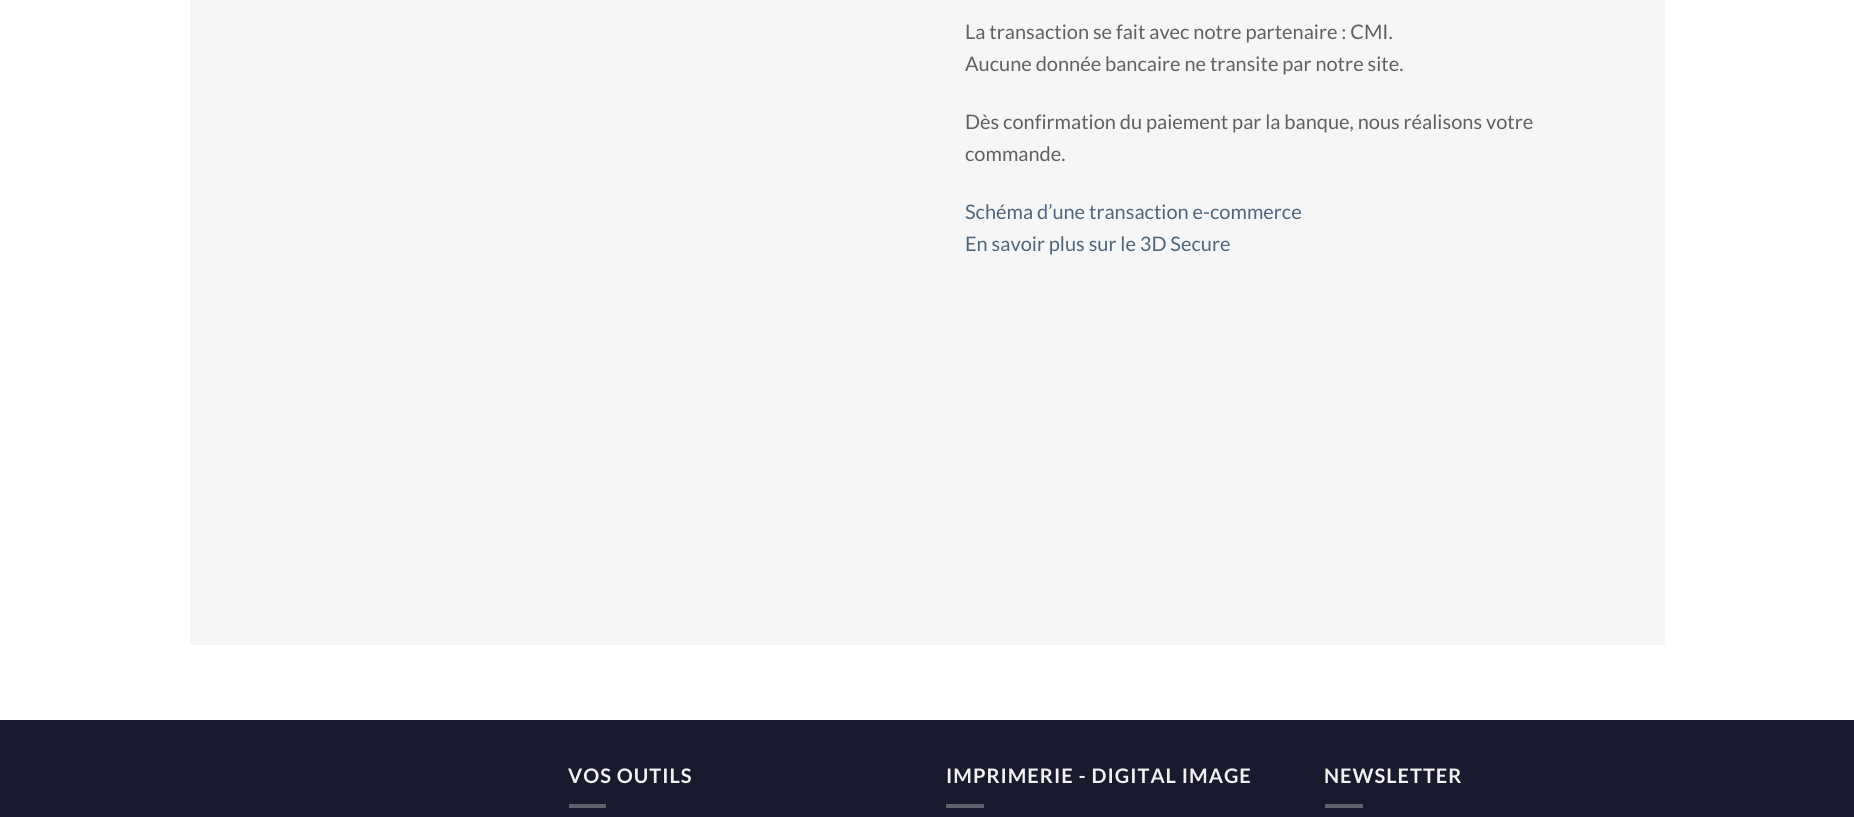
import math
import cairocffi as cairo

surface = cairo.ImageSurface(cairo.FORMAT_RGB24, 1854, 817)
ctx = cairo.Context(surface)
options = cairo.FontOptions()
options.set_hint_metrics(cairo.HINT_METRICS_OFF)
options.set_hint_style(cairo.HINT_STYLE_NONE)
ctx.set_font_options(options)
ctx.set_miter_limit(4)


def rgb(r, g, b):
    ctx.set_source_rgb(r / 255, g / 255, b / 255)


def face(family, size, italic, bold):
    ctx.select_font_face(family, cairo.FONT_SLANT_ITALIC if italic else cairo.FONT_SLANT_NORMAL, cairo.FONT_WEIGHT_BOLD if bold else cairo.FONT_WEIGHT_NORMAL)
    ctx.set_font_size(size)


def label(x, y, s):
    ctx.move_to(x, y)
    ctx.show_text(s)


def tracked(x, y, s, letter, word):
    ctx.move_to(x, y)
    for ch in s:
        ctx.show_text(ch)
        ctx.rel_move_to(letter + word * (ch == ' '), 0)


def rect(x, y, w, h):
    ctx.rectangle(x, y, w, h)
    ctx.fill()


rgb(255, 255, 255)
ctx.paint()
rgb(246, 246, 246)
rect(190, 0, 1475, 645)
face('Lato', 20, 0, 0)
rgb(96, 96, 96)
label(965, 39, 'La transaction se fait avec notre partenaire : CMI.')
label(965, 71, 'Aucune donnée bancaire ne transite par notre site.')
label(965, 129, 'Dès confirmation du paiement par la banque, nous réalisons votre')
label(965, 161, 'commande.')
rgb(78, 101, 123)
label(965, 219, 'Schéma d’une transaction e-commerce')
label(965, 251, 'En savoir plus sur le 3D Secure')
rgb(26, 26, 46)
rect(0, 721, 1854, 96)
rgb(25, 25, 44)
rect(0, 720, 1854, 1)
face('Lato', 20, 0, 1)
rgb(241, 241, 241)
tracked(568, 783, 'VOS OUTILS', 1, 0)
rgb(95, 95, 109)
rect(569, 804, 37, 4)
rgb(241, 241, 241)
tracked(946, 783, 'IMPRIMERIE - DIGITAL IMAGE', 1, 0)
rgb(95, 95, 109)
rect(946, 804, 38, 4)
rgb(241, 241, 241)
tracked(1324, 783, 'NEWSLETTER', 1, 0)
rgb(95, 95, 109)
rect(1325, 804, 38, 4)
surface.write_to_png('render.png')
